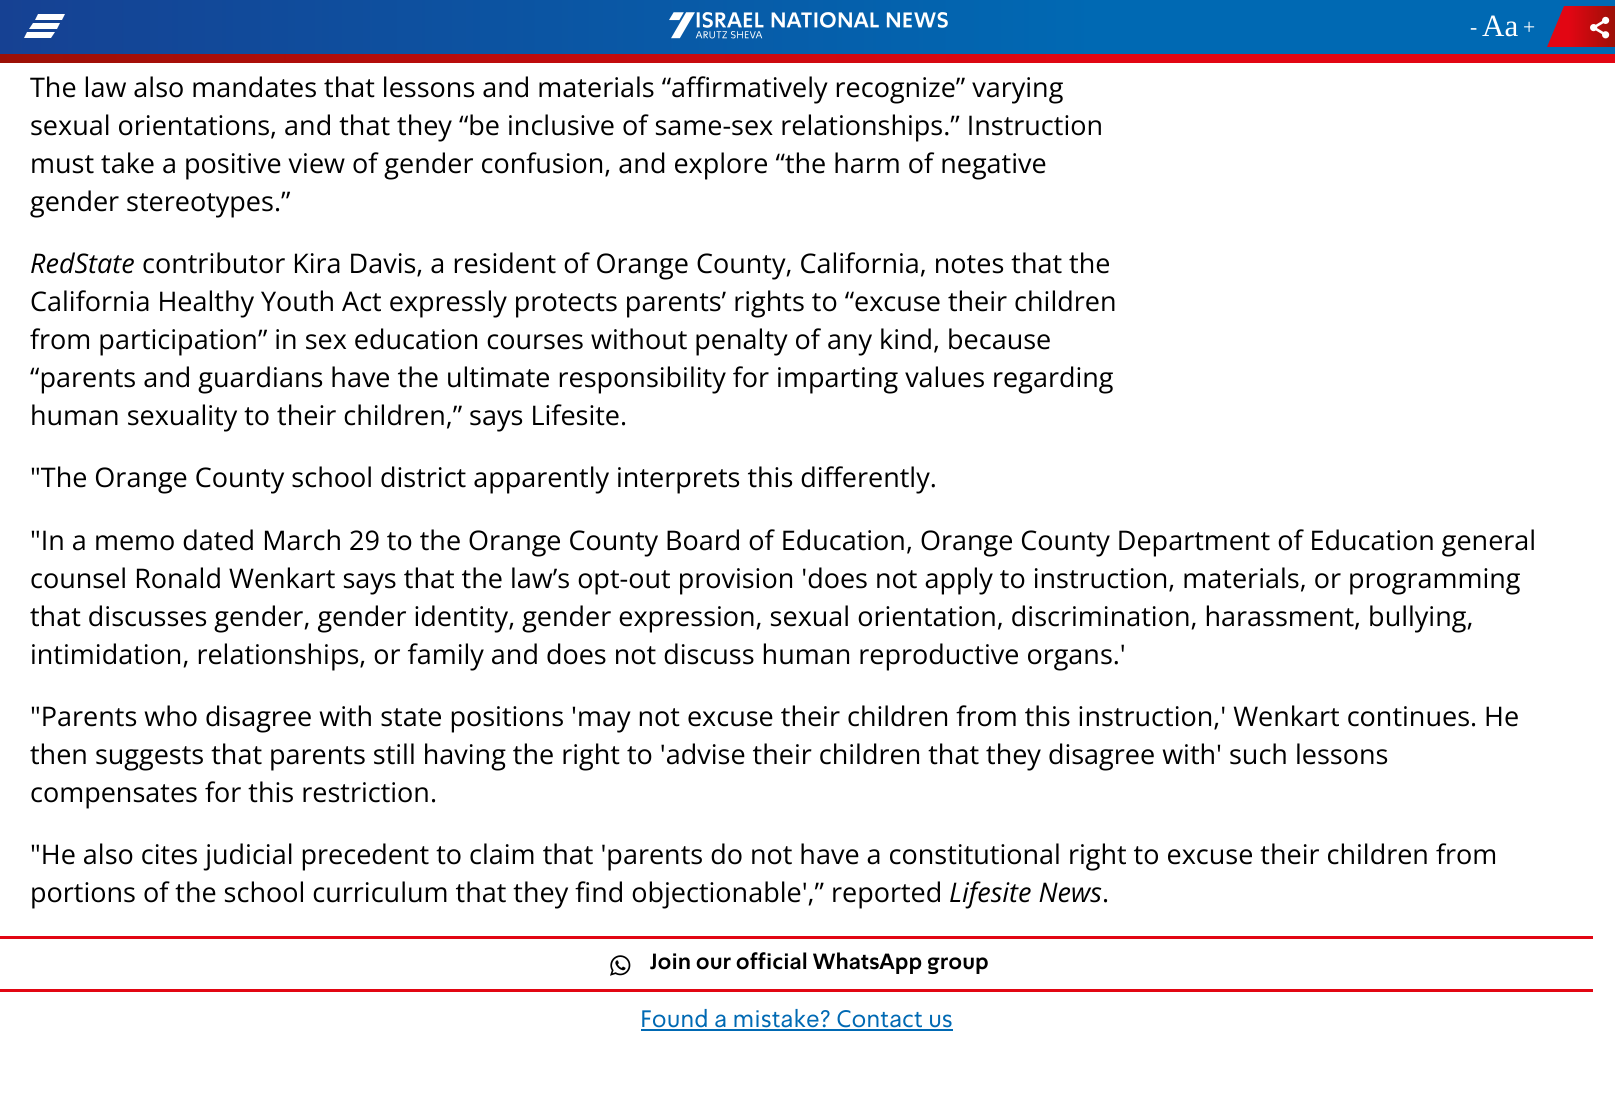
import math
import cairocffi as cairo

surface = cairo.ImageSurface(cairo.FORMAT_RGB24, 1615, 1096)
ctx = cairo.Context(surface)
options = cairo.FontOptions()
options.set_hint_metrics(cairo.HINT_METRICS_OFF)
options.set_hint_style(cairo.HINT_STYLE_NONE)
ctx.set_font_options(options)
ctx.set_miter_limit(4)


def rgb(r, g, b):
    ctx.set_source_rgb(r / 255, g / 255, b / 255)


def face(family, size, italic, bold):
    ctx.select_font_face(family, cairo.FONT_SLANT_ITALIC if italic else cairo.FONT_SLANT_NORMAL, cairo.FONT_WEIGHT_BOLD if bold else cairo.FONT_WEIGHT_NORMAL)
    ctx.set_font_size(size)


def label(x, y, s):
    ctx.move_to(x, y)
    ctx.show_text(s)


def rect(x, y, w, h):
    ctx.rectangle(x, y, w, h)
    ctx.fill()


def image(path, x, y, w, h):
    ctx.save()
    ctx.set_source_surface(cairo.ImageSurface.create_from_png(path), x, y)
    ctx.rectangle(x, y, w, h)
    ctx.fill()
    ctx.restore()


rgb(255, 255, 255)
ctx.paint()
gradient = cairo.LinearGradient(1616, 27, 0, 27)
gradient.add_color_stop_rgba(0.32, 0, 0.412, 0.702, 1)
gradient.add_color_stop_rgba(1, 0.086, 0.255, 0.576, 1)
ctx.set_source(gradient)
rect(0, 0, 1615, 54)
rgb(255, 255, 255)
ctx.new_path()
ctx.move_to(33, 23)
ctx.line_to(29, 29)
ctx.line_to(57, 29)
ctx.line_to(60, 23)
ctx.close_path()
ctx.move_to(38, 14)
ctx.line_to(35, 20)
ctx.line_to(62, 20)
ctx.line_to(65, 14)
ctx.close_path()
ctx.move_to(51, 38)
ctx.line_to(55, 32)
ctx.line_to(27, 32)
ctx.line_to(24, 38)
ctx.close_path()
ctx.fill()
image('image0.png', 669, 12, 279, 27)
face('Liberation Serif', 21.6, 0, 0)
label(1470, 34, '-')
face('Liberation Serif', 31, 0, 0)
label(1482, 36, 'Aa')
face('Liberation Serif', 21.6, 0, 0)
label(1523, 34, '+')
gradient = cairo.LinearGradient(1547, 26, 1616, 26)
gradient.add_color_stop_rgba(0.32, 0.886, 0.024, 0.075, 1)
gradient.add_color_stop_rgba(1, 0.608, 0.063, 0.024, 1)
ctx.set_source(gradient)
ctx.new_path()
ctx.move_to(1564, 6)
ctx.line_to(1547, 47)
ctx.line_to(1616, 47)
ctx.line_to(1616, 6)
ctx.close_path()
ctx.fill()
image('image1.png', 1590, 16, 20, 23)
gradient = cairo.LinearGradient(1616, 58, 0, 58)
gradient.add_color_stop_rgba(0.32, 0.886, 0.024, 0.075, 1)
gradient.add_color_stop_rgba(1, 0.608, 0.063, 0.024, 1)
ctx.set_source(gradient)
rect(0, 54, 1615, 9)
face('Open Sans', 27, 0, 0)
rgb(0, 0, 0)
label(30, 97, 'The law also mandates that lessons and materials “affirmatively recognize” varying')
label(30, 135, 'sexual orientations, and that they “be inclusive of same-sex relationships.” Instruction')
label(30, 173, 'must take a positive view of gender confusion, and explore “the harm of negative')
label(30, 211, 'gender stereotypes.”')
face('Open Sans', 27, 1, 0)
label(30, 273, 'RedState')
face('Open Sans', 27, 0, 0)
label(142, 273, 'contributor Kira Davis, a resident of Orange County, California, notes that the')
label(30, 311, 'California Healthy Youth Act expressly protects parents’ rights to “excuse their children')
label(30, 349, 'from participation” in sex education courses without penalty of any kind, because')
label(30, 387, '“parents and guardians have the ultimate responsibility for imparting values regarding')
label(30, 425, 'human sexuality to their children,” says Lifesite.')
label(30, 487, '"The Orange County school district apparently interprets this differently.')
label(30, 550, '"In a memo dated March 29 to the Orange County Board of Education, Orange County Department of Education general')
label(30, 588, 'counsel Ronald Wenkart says that the law’s opt-out provision \'does not apply to instruction, materials, or programming')
label(30, 626, 'that discusses gender, gender identity, gender expression, sexual orientation, discrimination, harassment, bullying,')
label(30, 664, 'intimidation, relationships, or family and does not discuss human reproductive organs.\'')
label(30, 726, '"Parents who disagree with state positions \'may not excuse their children from this instruction,\' Wenkart continues. He')
label(30, 764, 'then suggests that parents still having the right to \'advise their children that they disagree with\' such lessons')
label(30, 802, 'compensates for this restriction.')
label(30, 864, '"He also cites judicial precedent to claim that \'parents do not have a constitutional right to excuse their children from')
label(30, 902, 'portions of the school curriculum that they find objectionable\',” reported')
face('Open Sans', 27, 1, 0)
label(949, 902, 'Lifesite News')
face('Open Sans', 27, 0, 0)
label(1102, 902, '.')
rgb(226, 6, 19)
rect(0, 936, 1593, 3)
rect(0, 989, 1593, 3)
image('image2.png', 610, 955, 21, 21)
face('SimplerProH', 21.6, 0, 1)
rgb(0, 0, 0)
label(650, 969, 'Join our official WhatsApp group')
face('SimplerProH', 24, 0, 0)
rgb(0, 105, 179)
label(640, 1027, 'Found a mistake? Contact us')
rect(641, 1029, 312, 2)
surface.write_to_png('render.png')
